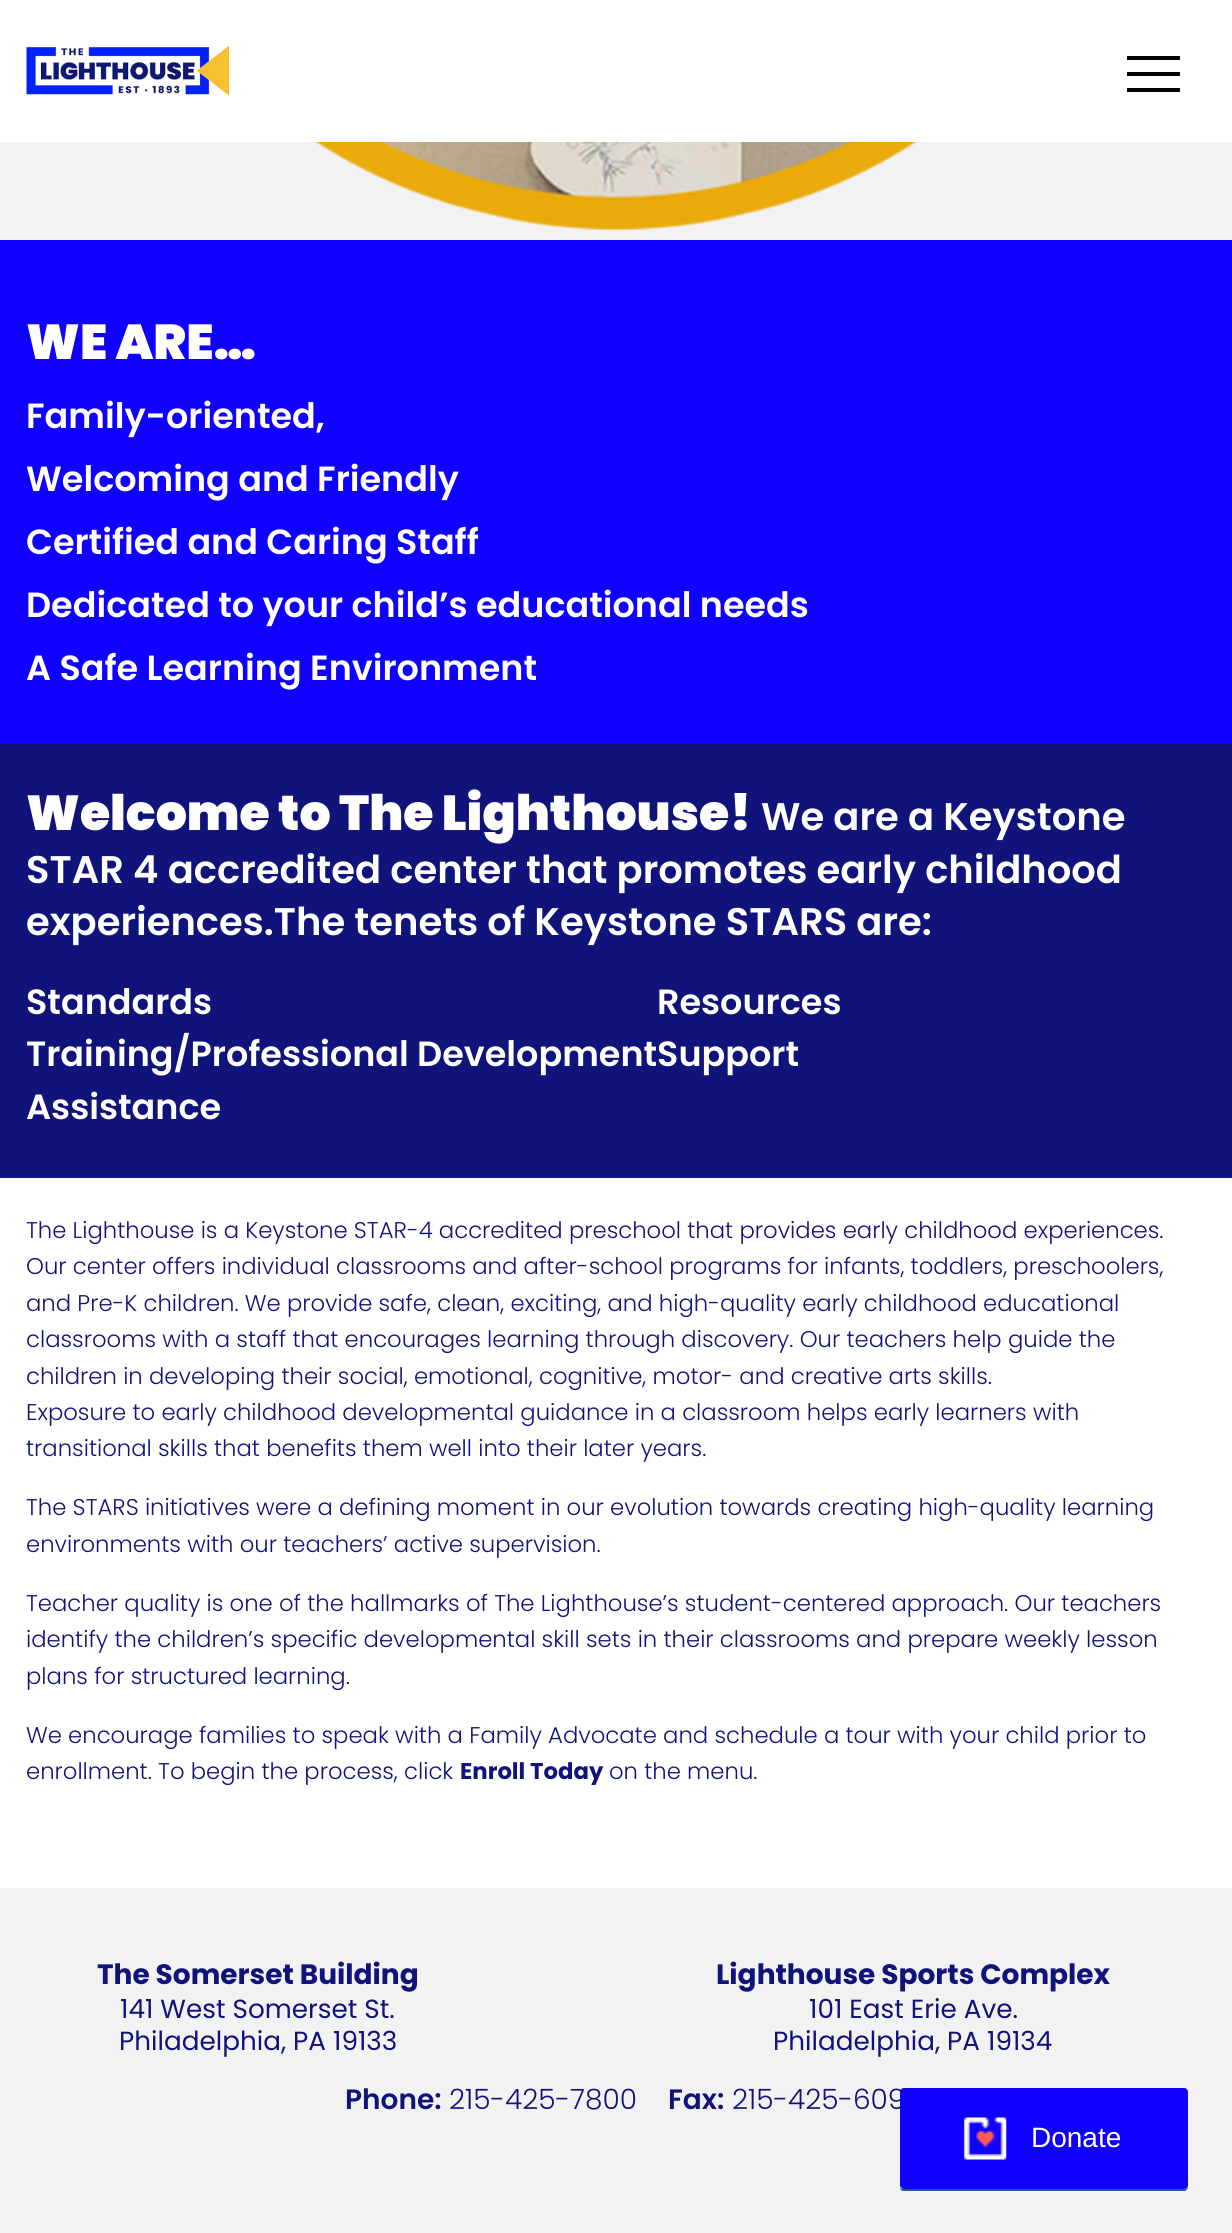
import math
import cairocffi as cairo

surface = cairo.ImageSurface(cairo.FORMAT_RGB24, 1232, 2233)
ctx = cairo.Context(surface)
options = cairo.FontOptions()
options.set_hint_metrics(cairo.HINT_METRICS_OFF)
options.set_hint_style(cairo.HINT_STYLE_NONE)
ctx.set_font_options(options)
ctx.set_miter_limit(4)


def rgb(r, g, b):
    ctx.set_source_rgb(r / 255, g / 255, b / 255)


def face(family, size, italic, bold):
    ctx.select_font_face(family, cairo.FONT_SLANT_ITALIC if italic else cairo.FONT_SLANT_NORMAL, cairo.FONT_WEIGHT_BOLD if bold else cairo.FONT_WEIGHT_NORMAL)
    ctx.set_font_size(size)


def label(x, y, s):
    ctx.move_to(x, y)
    ctx.show_text(s)


def rect(x, y, w, h):
    ctx.rectangle(x, y, w, h)
    ctx.fill()


def rrect(x, y, w, h, r):
    ctx.new_sub_path()
    for i, (u, v) in enumerate([(x + w - r, y + h - r), (x + r, y + h - r), (x + r, y + r), (x + w - r, y + r)]):
        ctx.arc(u, v, r, i * math.pi / 2, (i + 1) * math.pi / 2)
    ctx.close_path()


def image(path, x, y, w, h):
    ctx.save()
    ctx.set_source_surface(cairo.ImageSurface.create_from_png(path), x, y)
    ctx.rectangle(x, y, w, h)
    ctx.fill()
    ctx.restore()


rgb(242, 242, 242)
ctx.paint()
rgb(255, 255, 255)
rect(0, 0, 1232, 142)
image('image0.png', 26, 45, 204, 51)
rgb(0, 0, 0)
rect(1127, 56, 53, 4)
rect(1127, 72, 53, 4)
rect(1127, 88, 53, 4)
image('image1.png', 314, 142, 604, 89)
rgb(16, 0, 255)
rect(0, 240, 1232, 504)
face('Poppins Black', 49, 0, 0)
rgb(255, 255, 255)
label(26, 359, 'WE ARE…')
face('Poppins SemiBold', 35, 0, 0)
label(26, 428, 'Family-oriented,')
label(26, 491, 'Welcoming and Friendly')
label(26, 554, 'Certified and Caring Staff')
label(26, 617, 'Dedicated to your child’s educational needs')
label(26, 680, 'A Safe Learning Environment')
rgb(16, 19, 121)
rect(0, 744, 1232, 434)
face('Poppins Black', 49, 0, 0)
rgb(255, 255, 255)
label(26, 830, 'Welcome to The Lighthouse!')
face('Poppins SemiBold', 38.5, 0, 0)
label(761, 830, 'We are a Keystone')
label(26, 883, 'STAR 4 accredited center that promotes early childhood')
label(26, 935, 'experiences.The tenets of Keystone STARS are:')
face('Poppins SemiBold', 35, 0, 0)
label(26, 1014, 'Standards')
label(26, 1066, 'Training/Professional DevelopmentSupport')
label(26, 1119, 'Assistance')
label(657, 1014, 'Resources')
rect(0, 1178, 1232, 710)
face('Poppins Light', 22.75, 0, 0)
rgb(16, 19, 121)
label(26, 1238, 'The Lighthouse is a Keystone STAR-4 accredited preschool that provides early childhood experiences.')
label(26, 1274, 'Our center offers individual classrooms and after-school programs for infants, toddlers, preschoolers,')
label(26, 1311, 'and Pre-K children. We provide safe, clean, exciting, and high-quality early childhood educational')
label(26, 1347, 'classrooms with a staff that encourages learning through discovery. Our teachers help guide the')
label(26, 1384, 'children in developing their social, emotional, cognitive, motor- and creative arts skills.')
label(26, 1420, 'Exposure to early childhood developmental guidance in a classroom helps early learners with')
label(26, 1456, 'transitional skills that benefits them well into their later years.')
label(26, 1515, 'The STARS initiatives were a defining moment in our evolution towards creating high-quality learning')
label(26, 1552, 'environments with our teachers’ active supervision.')
label(26, 1611, 'Teacher quality is one of the hallmarks of The Lighthouse’s student-centered approach. Our teachers')
label(26, 1647, 'identify the children’s specific developmental skill sets in their classrooms and prepare weekly lesson')
label(26, 1684, 'plans for structured learning.')
label(26, 1743, 'We encourage families to speak with a Family Advocate and schedule a tour with your child prior to')
label(26, 1779, 'enrollment. To begin the process, click')
face('Poppins', 22.75, 0, 1)
label(460, 1779, 'Enroll Today')
face('Poppins Light', 22.75, 0, 0)
label(609, 1779, 'on the menu.')
face('Poppins', 28, 0, 1)
label(97, 1984, 'The Somerset Building')
face('Poppins', 26.25, 0, 0)
label(120, 2018, '141 West Somerset St.')
label(119, 2050, 'Philadelphia, PA 19133')
face('Poppins', 28, 0, 1)
label(716, 1984, 'Lighthouse Sports Complex')
face('Poppins', 26.25, 0, 0)
label(809, 2018, '101 East Erie Ave.')
label(773, 2050, 'Philadelphia, PA 19134')
face('Poppins SemiBold', 28, 0, 0)
label(345, 2109, 'Phone:')
face('Poppins Light', 28, 0, 0)
label(449, 2109, '215-425-7800')
face('Poppins SemiBold', 28, 0, 0)
label(668, 2109, 'Fax:')
face('Poppins Light', 28, 0, 0)
label(732, 2109, '215-425-609')
rgb(31, 90, 137)
ctx.new_path()
ctx.move_to(900, 2188)
ctx.curve_to(900, 2190, 902, 2191, 904, 2191)
ctx.line_to(1184, 2191)
ctx.curve_to(1186, 2191, 1188, 2189, 1188, 2187)
ctx.curve_to(1187, 2188, 1186, 2189, 1185, 2189)
ctx.line_to(903, 2189)
ctx.curve_to(902, 2189, 901, 2189, 900, 2188)
ctx.close_path()
ctx.fill()
rgb(16, 0, 255)
rrect(900, 2088, 288, 101, 4)
ctx.fill()
image('image2.png', 964, 2117, 43, 43)
face('Liberation Sans', 28, 0, 0)
rgb(255, 255, 255)
label(1031, 2147, 'Donate')
surface.write_to_png('render.png')
